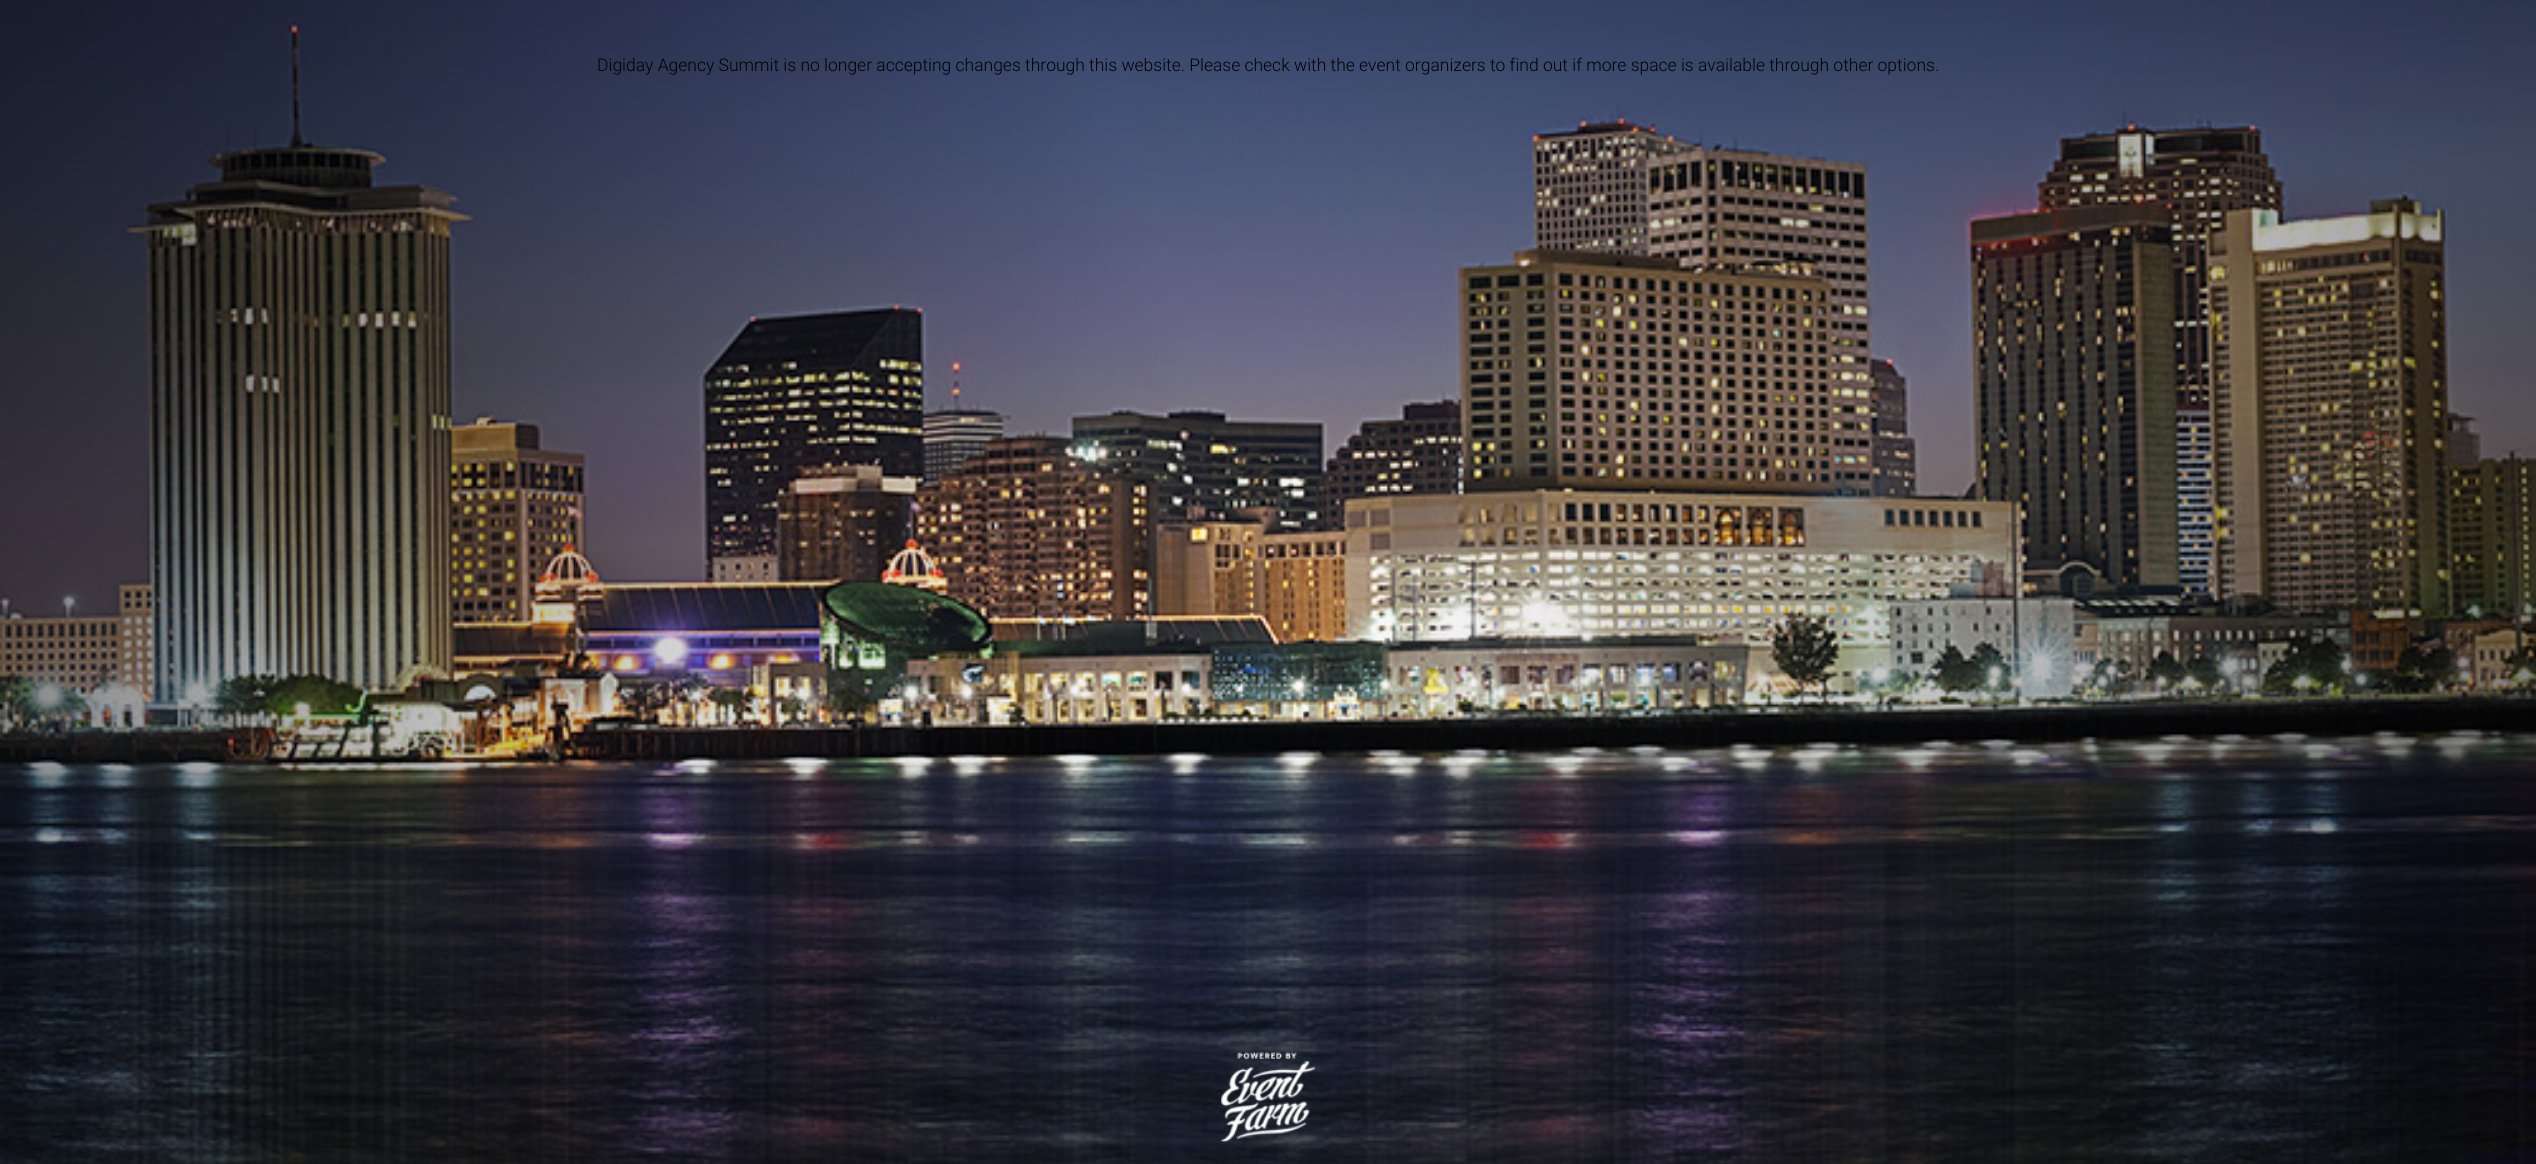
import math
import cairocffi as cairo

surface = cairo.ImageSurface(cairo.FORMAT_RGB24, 2536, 1164)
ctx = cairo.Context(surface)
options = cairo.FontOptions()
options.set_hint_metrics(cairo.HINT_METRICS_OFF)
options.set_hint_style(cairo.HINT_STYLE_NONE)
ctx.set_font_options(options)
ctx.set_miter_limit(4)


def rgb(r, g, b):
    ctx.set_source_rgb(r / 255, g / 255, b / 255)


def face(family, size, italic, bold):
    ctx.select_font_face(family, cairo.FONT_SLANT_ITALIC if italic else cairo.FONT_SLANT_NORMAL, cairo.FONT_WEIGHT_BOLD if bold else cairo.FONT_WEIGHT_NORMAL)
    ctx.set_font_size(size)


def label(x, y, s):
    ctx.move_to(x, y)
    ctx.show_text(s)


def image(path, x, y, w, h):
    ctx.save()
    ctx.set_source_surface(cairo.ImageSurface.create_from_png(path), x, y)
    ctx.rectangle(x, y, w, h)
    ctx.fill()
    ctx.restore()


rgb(255, 255, 255)
ctx.paint()
image('image0.png', 0, 0, 2536, 1164)
face('Roboto Light', 17.5, 0, 0)
rgb(0, 0, 0)
label(597, 71, 'Digiday Agency Summit is no longer accepting changes through this website. Please check with the event organizers to find out if more space is available through other options.')
image('image1.png', 1221, 1052, 94, 90)
surface.write_to_png('render.png')
